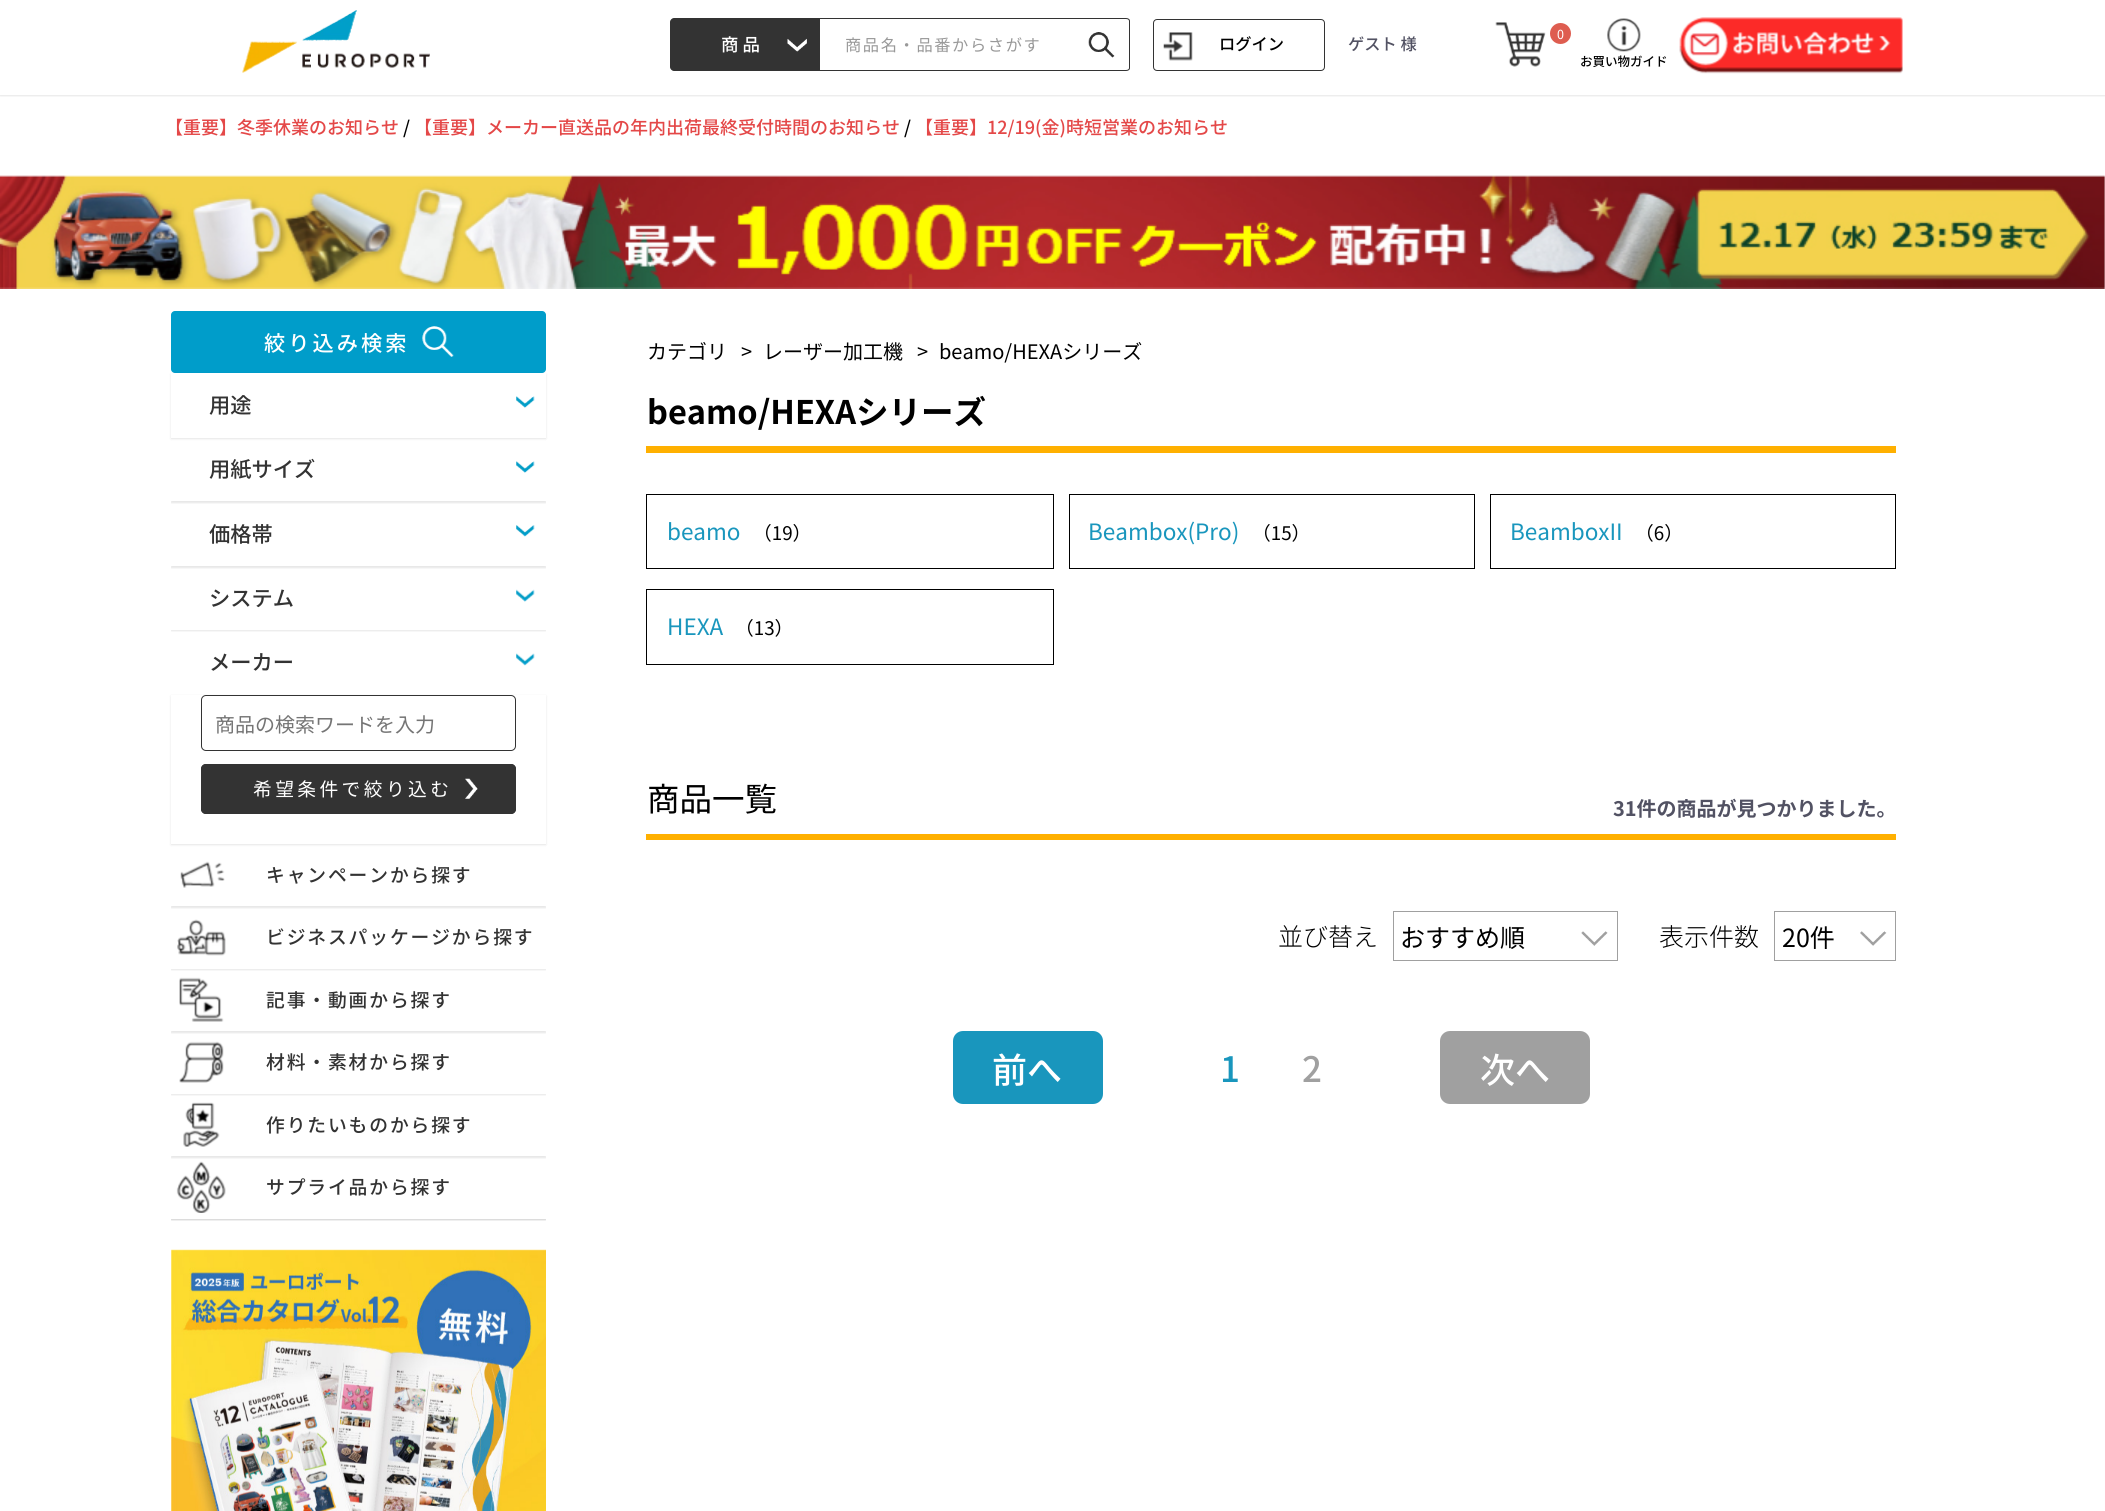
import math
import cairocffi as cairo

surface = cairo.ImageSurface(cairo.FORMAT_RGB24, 2105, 1511)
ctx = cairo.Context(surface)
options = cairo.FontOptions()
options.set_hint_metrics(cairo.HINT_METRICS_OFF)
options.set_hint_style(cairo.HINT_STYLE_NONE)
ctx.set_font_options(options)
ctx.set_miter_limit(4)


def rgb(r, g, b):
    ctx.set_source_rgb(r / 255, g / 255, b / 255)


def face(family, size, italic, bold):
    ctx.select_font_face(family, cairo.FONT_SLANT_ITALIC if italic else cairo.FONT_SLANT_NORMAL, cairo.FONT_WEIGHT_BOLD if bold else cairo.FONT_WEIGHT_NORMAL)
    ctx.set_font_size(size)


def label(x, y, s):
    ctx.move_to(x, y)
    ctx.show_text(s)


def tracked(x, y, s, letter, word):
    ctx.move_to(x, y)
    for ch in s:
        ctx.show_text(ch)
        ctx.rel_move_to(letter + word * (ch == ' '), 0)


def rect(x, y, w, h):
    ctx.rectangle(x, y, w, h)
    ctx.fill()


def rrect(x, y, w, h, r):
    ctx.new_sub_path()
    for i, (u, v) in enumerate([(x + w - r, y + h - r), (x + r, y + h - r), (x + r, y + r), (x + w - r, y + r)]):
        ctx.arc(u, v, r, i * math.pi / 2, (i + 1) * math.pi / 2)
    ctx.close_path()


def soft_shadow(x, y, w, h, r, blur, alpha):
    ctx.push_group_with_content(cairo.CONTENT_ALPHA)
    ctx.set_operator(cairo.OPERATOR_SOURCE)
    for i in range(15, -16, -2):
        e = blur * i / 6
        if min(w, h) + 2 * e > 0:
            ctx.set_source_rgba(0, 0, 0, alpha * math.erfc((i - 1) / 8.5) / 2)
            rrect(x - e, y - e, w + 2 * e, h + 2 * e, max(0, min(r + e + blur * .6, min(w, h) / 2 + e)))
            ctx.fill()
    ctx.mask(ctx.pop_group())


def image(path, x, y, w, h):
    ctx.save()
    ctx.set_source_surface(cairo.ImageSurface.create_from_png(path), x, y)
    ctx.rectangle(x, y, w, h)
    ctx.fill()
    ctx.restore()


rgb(255, 255, 255)
ctx.paint()
ctx.save()
ctx.rectangle(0, 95, 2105, 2)
ctx.clip()
rgb(0, 0, 0)
soft_shadow(0, 1, 2105, 95, 0, 1, 0.1)
ctx.restore()
image('image0.png', 242, 10, 188, 63)
image('image1.png', 1495, 22, 51, 45)
rgb(222, 93, 80)
ctx.arc(1560.5, 33.5, 10.5, 0, 2 * math.pi)
ctx.fill()
face('Noto Sans JP', 12.5, 0, 0)
rgb(255, 255, 255)
label(1557, 39, '0')
image('image2.png', 1679, 17, 224, 57)
rgb(51, 51, 51)
ctx.new_path()
ctx.move_to(674, 18)
ctx.line_to(820, 18)
ctx.line_to(820, 71)
ctx.line_to(674, 71)
ctx.curve_to(672, 71, 670, 69, 670, 67)
ctx.line_to(670, 22)
ctx.curve_to(670, 20, 672, 18, 674, 18)
ctx.close_path()
ctx.fill()
face('Noto Sans JP Medium', 17.5, 0, 0)
rgb(255, 255, 255)
tracked(721, 51, '商品', 4, 0)
image('image3.png', 787, 38, 20, 14)
rgb(51, 51, 51)
ctx.set_fill_rule(cairo.FILL_RULE_EVEN_ODD)
ctx.new_path()
ctx.move_to(820, 18)
ctx.line_to(1126, 18)
ctx.curve_to(1128, 18, 1130, 19, 1130, 21)
ctx.line_to(1130, 68)
ctx.curve_to(1130, 70, 1128, 71, 1126, 71)
ctx.line_to(820, 71)
ctx.close_path()
ctx.move_to(820, 19)
ctx.line_to(1126, 19)
ctx.curve_to(1128, 19, 1129, 20, 1129, 21)
ctx.line_to(1129, 68)
ctx.curve_to(1129, 69, 1128, 70, 1126, 70)
ctx.line_to(820, 70)
ctx.close_path()
ctx.fill()
face('Noto Sans JP', 16.25, 0, 0)
rgb(153, 153, 153)
tracked(845, 51, '商品名・品番からさがす', 1.6, 0)
image('image4.png', 1088, 32, 27, 26)
rrect(1153.5, 19.5, 171, 51, 3.5)
rgb(51, 51, 51)
ctx.set_line_width(1)
ctx.stroke()
image('image5.png', 1163, 32, 30, 29)
face('Noto Sans JP Medium', 16.25, 0, 0)
rgb(0, 0, 0)
label(1219, 50, 'ログイン')
rgb(82, 82, 99)
label(1348, 50, 'ゲスト 様')
image('image6.png', 1607, 18, 34, 34)
face('Noto Sans JP Medium', 12.5, 0, 0)
rgb(0, 0, 0)
label(1580, 66, 'お買い物ガイド')
face('Noto Sans JP Medium', 18, 0, 0)
rgb(228, 72, 72)
label(165, 134, '【重要】冬季休業のお知らせ')
rgb(0, 0, 0)
label(403, 134, '/')
rgb(228, 72, 72)
label(414, 134, '【重要】メーカー直送品の年内出荷最終受付時間のお知らせ')
rgb(0, 0, 0)
label(904, 134, '/')
rgb(228, 72, 72)
label(915, 134, '【重要】12/19(金)時短営業のお知らせ')
image('image7.png', 0, 175, 2105, 114)
rgb(0, 157, 202)
rrect(171, 311, 375, 62, 4)
ctx.fill()
face('Noto Sans JP Medium', 21.25, 0, 0)
rgb(255, 255, 255)
tracked(264, 351, '絞り込み検索', 3, 0)
image('image8.png', 422, 326, 32, 31)
ctx.save()
ctx.new_path()
ctx.move_to(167, 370)
ctx.line_to(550, 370)
ctx.line_to(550, 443)
ctx.line_to(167, 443)
ctx.close_path()
ctx.move_to(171, 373)
ctx.line_to(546, 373)
ctx.line_to(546, 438)
ctx.line_to(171, 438)
ctx.close_path()
ctx.clip()
rgb(0, 0, 0)
soft_shadow(171, 374, 375, 65, 0, 1, 0.1)
ctx.restore()
rect(171, 436, 1, 1)
rgb(51, 51, 51)
label(209, 413, '用途')
image('image9.png', 516, 396, 19, 12)
ctx.save()
ctx.set_fill_rule(cairo.FILL_RULE_WINDING)
ctx.rectangle(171, 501, 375, 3)
ctx.clip()
rgb(0, 0, 0)
soft_shadow(171, 439, 375, 64, 0, 1, 0.1)
ctx.restore()
rgb(255, 255, 255)
rect(171, 500, 1, 1)
rgb(51, 51, 51)
label(209, 477, '用紙サイズ')
image('image10.png', 516, 461, 19, 12)
ctx.save()
ctx.set_fill_rule(cairo.FILL_RULE_WINDING)
ctx.rectangle(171, 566, 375, 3)
ctx.clip()
rgb(0, 0, 0)
soft_shadow(171, 503, 375, 65, 0, 1, 0.1)
ctx.restore()
rgb(255, 255, 255)
rect(171, 565, 1, 1)
rgb(51, 51, 51)
label(209, 542, '価格帯')
image('image11.png', 516, 525, 19, 12)
ctx.save()
ctx.set_fill_rule(cairo.FILL_RULE_WINDING)
ctx.rectangle(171, 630, 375, 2)
ctx.clip()
rgb(0, 0, 0)
soft_shadow(171, 568, 375, 63, 0, 1, 0.1)
ctx.restore()
rgb(255, 255, 255)
rect(171, 629, 1, 1)
rgb(51, 51, 51)
label(209, 606, 'システム')
image('image12.png', 516, 589, 19, 13)
label(209, 670, 'メーカー')
image('image13.png', 516, 653, 19, 13)
ctx.save()
ctx.new_path()
ctx.move_to(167, 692)
ctx.line_to(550, 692)
ctx.line_to(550, 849)
ctx.line_to(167, 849)
ctx.close_path()
ctx.move_to(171, 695)
ctx.line_to(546, 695)
ctx.line_to(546, 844)
ctx.line_to(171, 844)
ctx.close_path()
ctx.clip()
rgb(0, 0, 0)
soft_shadow(171, 696, 375, 149, 0, 1, 0.1)
ctx.restore()
rrect(201.5, 695.5, 314, 55, 4.5)
ctx.stroke()
face('Noto Sans JP', 20, 0, 0)
rgb(117, 117, 117)
label(215, 732, '商品の検索ワードを入力')
rgb(51, 51, 51)
rrect(201, 764, 315, 50, 5)
ctx.fill()
image('image14.png', 465, 778, 13, 21)
rrect(201.5, 764.5, 314, 49, 4.5)
ctx.stroke()
face('Noto Sans JP', 18.75, 0, 0)
rgb(255, 255, 255)
tracked(253, 796, '希望条件で絞り込む', 3.4, 0)
ctx.save()
ctx.set_fill_rule(cairo.FILL_RULE_WINDING)
ctx.rectangle(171, 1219, 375, 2)
ctx.clip()
rgb(0, 0, 0)
soft_shadow(171, 845, 375, 375, 0, 1, 0.1)
ctx.restore()
ctx.save()
ctx.set_fill_rule(cairo.FILL_RULE_WINDING)
ctx.rectangle(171, 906, 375, 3)
ctx.clip()
rgb(0, 0, 0)
soft_shadow(171, 845, 375, 63, 0, 1, 0.1)
ctx.restore()
rect(171, 905, 1, 1)
image('image15.png', 180, 861, 45, 27)
face('Noto Sans JP Medium', 18.75, 0, 0)
rgb(51, 51, 51)
tracked(266, 882, 'キャンペーンから探す', 1.9, 0)
ctx.save()
ctx.set_fill_rule(cairo.FILL_RULE_WINDING)
ctx.rectangle(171, 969, 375, 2)
ctx.clip()
rgb(0, 0, 0)
soft_shadow(171, 908, 375, 62, 0, 1, 0.1)
ctx.restore()
rgb(255, 255, 255)
rect(171, 968, 375, 1)
image('image16.png', 177, 919, 49, 37)
rgb(51, 51, 51)
tracked(266, 944, 'ビジネスパッケージから探す', 1.9, 0)
ctx.save()
ctx.set_fill_rule(cairo.FILL_RULE_WINDING)
ctx.rectangle(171, 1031, 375, 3)
ctx.clip()
rgb(0, 0, 0)
soft_shadow(171, 970, 375, 63, 0, 1, 0.1)
ctx.restore()
rgb(255, 255, 255)
rect(171, 1030, 1, 1)
image('image17.png', 179, 977, 45, 45)
rgb(51, 51, 51)
tracked(266, 1007, '記事・動画から探す', 1.9, 0)
ctx.save()
ctx.set_fill_rule(cairo.FILL_RULE_WINDING)
ctx.rectangle(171, 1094, 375, 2)
ctx.clip()
rgb(0, 0, 0)
soft_shadow(171, 1033, 375, 62, 0, 1, 0.1)
ctx.restore()
rgb(255, 255, 255)
rect(171, 1093, 375, 1)
image('image18.png', 179, 1041, 45, 42)
rgb(51, 51, 51)
tracked(266, 1069, '材料・素材から探す', 1.9, 0)
ctx.save()
ctx.set_fill_rule(cairo.FILL_RULE_WINDING)
ctx.rectangle(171, 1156, 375, 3)
ctx.clip()
rgb(0, 0, 0)
soft_shadow(171, 1095, 375, 63, 0, 1, 0.1)
ctx.restore()
rgb(255, 255, 255)
rect(171, 1155, 1, 1)
image('image19.png', 183, 1102, 37, 45)
rgb(51, 51, 51)
tracked(266, 1132, '作りたいものから探す', 1.9, 0)
ctx.save()
ctx.set_fill_rule(cairo.FILL_RULE_WINDING)
ctx.rectangle(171, 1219, 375, 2)
ctx.clip()
rgb(0, 0, 0)
soft_shadow(171, 1158, 375, 62, 0, 1, 0.1)
ctx.restore()
rgb(255, 255, 255)
rect(171, 1218, 375, 1)
image('image20.png', 176, 1161, 50, 52)
rgb(51, 51, 51)
tracked(266, 1194, 'サプライ品から探す', 1.9, 0)
image('image21.png', 171, 1249, 375, 262)
face('Noto Sans JP', 20, 0, 0)
rgb(0, 0, 0)
label(647, 359, 'カテゴリ')
label(741, 359, '>')
label(763, 359, 'レーザー加工機')
label(917, 359, '>')
label(939, 359, 'beamo/HEXAシリーズ')
rgb(255, 176, 0)
rect(646, 446, 1250, 7)
face('Noto Sans JP', 32.5, 0, 1)
rgb(0, 0, 0)
label(647, 424, 'beamo/HEXAシリーズ')
ctx.rectangle(646.5, 494.5, 407, 74)
ctx.stroke()
face('Noto Sans JP', 22.5, 0, 0)
rgb(25, 150, 189)
label(667, 540, 'beamo')
face('Noto Sans JP', 18.75, 0, 0)
rgb(0, 0, 0)
label(753, 540, '（19）')
ctx.rectangle(1069.5, 494.5, 405, 74)
ctx.stroke()
face('Noto Sans JP', 22.5, 0, 0)
rgb(25, 150, 189)
label(1088, 540, 'Beambox(Pro)')
face('Noto Sans JP', 18.75, 0, 0)
rgb(0, 0, 0)
label(1252, 540, '（15）')
ctx.rectangle(1490.5, 494.5, 405, 74)
ctx.stroke()
face('Noto Sans JP', 22.5, 0, 0)
rgb(25, 150, 189)
label(1510, 540, 'BeamboxII')
face('Noto Sans JP', 18.75, 0, 0)
rgb(0, 0, 0)
label(1635, 540, '（6）')
ctx.rectangle(646.5, 589.5, 407, 75)
ctx.stroke()
face('Noto Sans JP', 22.5, 0, 0)
rgb(25, 150, 189)
label(667, 635, 'HEXA')
face('Noto Sans JP', 18.75, 0, 0)
rgb(0, 0, 0)
label(735, 635, '（13）')
rgb(255, 176, 0)
rect(646, 834, 1250, 6)
face('Noto Sans JP', 32.5, 0, 0)
rgb(0, 0, 0)
label(647, 811, '商品一覧')
face('Noto Sans JP', 20, 0, 1)
rgb(82, 82, 99)
label(1613, 816, '31件の商品が見つかりました。')
face('Noto Sans JP Light', 25, 0, 0)
rgb(0, 0, 0)
label(1278, 946, '並び替え')
image('image22.png', 1581, 931, 27, 15)
ctx.rectangle(1393.5, 911.5, 224, 49)
rgb(160, 160, 160)
ctx.stroke()
face('Noto Sans JP', 25, 0, 0)
rgb(0, 0, 0)
label(1400, 947, 'おすすめ順')
face('Noto Sans JP Light', 25, 0, 0)
label(1659, 946, '表示件数')
image('image23.png', 1860, 931, 27, 15)
ctx.rectangle(1774.5, 911.5, 121, 49)
rgb(160, 160, 160)
ctx.stroke()
face('Noto Sans JP', 25, 0, 0)
rgb(0, 0, 0)
label(1782, 947, '20件')
rgb(25, 150, 189)
rrect(953, 1031, 150, 73, 10)
ctx.fill()
face('Noto Sans JP Medium', 35, 0, 0)
rgb(255, 255, 255)
label(992, 1083, '前へ')
rgb(25, 150, 189)
label(1220, 1082, '1')
rgb(160, 160, 160)
label(1302, 1082, '2')
rrect(1440, 1031, 150, 73, 10)
ctx.fill()
rgb(255, 255, 255)
label(1480, 1083, '次へ')
surface.write_to_png('render.png')
